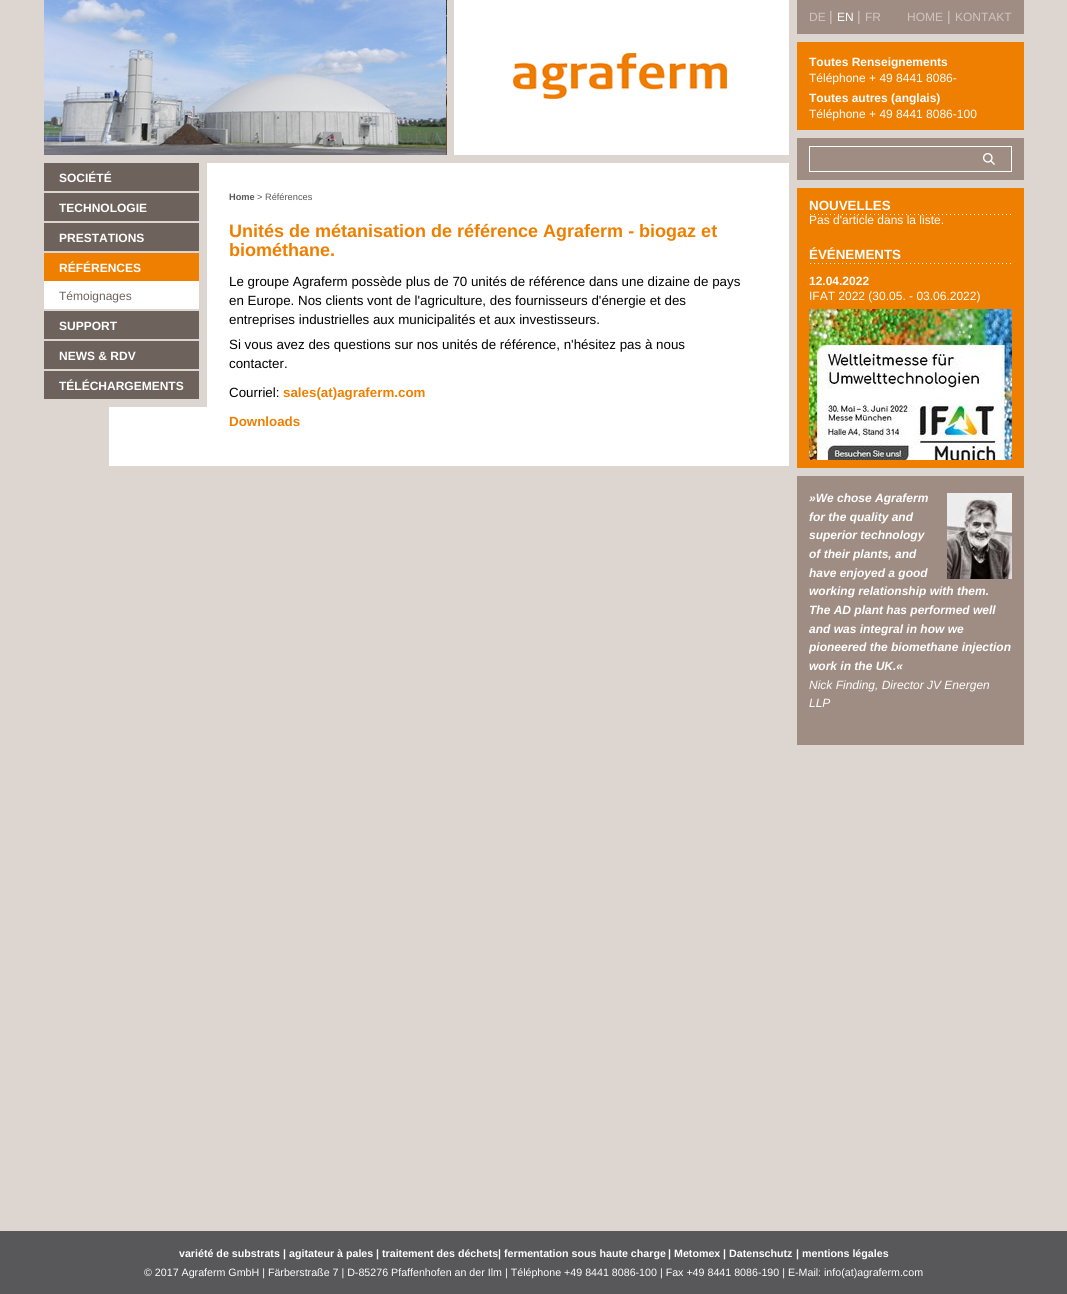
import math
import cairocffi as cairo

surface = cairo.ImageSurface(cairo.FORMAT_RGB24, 1067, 1294)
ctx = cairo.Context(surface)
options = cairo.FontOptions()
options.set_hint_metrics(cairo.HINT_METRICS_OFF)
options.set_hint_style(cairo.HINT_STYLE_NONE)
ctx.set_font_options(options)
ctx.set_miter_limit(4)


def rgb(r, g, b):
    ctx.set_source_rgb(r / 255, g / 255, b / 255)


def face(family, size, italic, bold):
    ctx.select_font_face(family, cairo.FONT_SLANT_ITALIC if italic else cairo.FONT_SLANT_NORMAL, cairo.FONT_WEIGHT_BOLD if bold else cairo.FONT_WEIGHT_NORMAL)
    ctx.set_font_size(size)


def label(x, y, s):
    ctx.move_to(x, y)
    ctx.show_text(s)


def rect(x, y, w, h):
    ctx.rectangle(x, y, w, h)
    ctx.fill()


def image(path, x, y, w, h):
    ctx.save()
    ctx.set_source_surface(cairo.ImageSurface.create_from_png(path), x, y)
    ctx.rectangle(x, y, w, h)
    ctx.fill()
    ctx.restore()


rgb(220, 213, 208)
ctx.paint()
image('image0.png', 446, 0, 1, 155)
image('image1.png', 44, 0, 402, 155)
image('image2.png', 454, 0, 335, 155)
rgb(255, 255, 255)
rect(109, 163, 680, 303)
rgb(220, 213, 208)
rect(109, 163, 98, 244)
rgb(110, 98, 92)
rect(44, 163, 155, 28)
face('Liberation Sans', 12, 0, 1)
rgb(255, 255, 255)
label(59, 182, 'SOCIÉTÉ')
rgb(110, 98, 92)
rect(44, 193, 155, 28)
rgb(255, 255, 255)
label(59, 212, 'TECHNOLOGIE')
rgb(110, 98, 92)
rect(44, 223, 155, 28)
rgb(255, 255, 255)
label(59, 242, 'PRESTATIONS')
rgb(239, 127, 0)
rect(44, 253, 155, 28)
rgb(255, 255, 255)
label(59, 272, 'RÉFÉRENCES')
rect(44, 281, 155, 28)
face('Liberation Sans', 12, 0, 0)
rgb(110, 98, 92)
label(59, 300, 'Témoignages')
rect(44, 311, 155, 28)
face('Liberation Sans', 12, 0, 1)
rgb(255, 255, 255)
label(59, 330, 'SUPPORT')
rgb(110, 98, 92)
rect(44, 341, 155, 28)
rgb(255, 255, 255)
label(59, 360, 'NEWS & RDV')
rgb(110, 98, 92)
rect(44, 371, 155, 28)
rgb(255, 255, 255)
label(59, 390, 'TÉLÉCHARGEMENTS')
face('Liberation Sans', 9.25, 0, 1)
rgb(88, 88, 88)
label(229, 200, 'Home')
face('Liberation Sans', 9.25, 0, 0)
label(257, 200, '> Références')
face('Liberation Sans', 18, 0, 1)
rgb(238, 127, 1)
label(229, 237, 'Unités de métanisation de référence Agraferm - biogaz et')
label(229, 256, 'biométhane.')
face('Liberation Sans', 13.35, 0, 0)
rgb(0, 0, 0)
label(229, 286, 'Le groupe Agraferm possède plus de 70 unités de référence dans une dizaine de pays')
label(229, 305, 'en Europe. Nos clients vont de l\'agriculture, des fournisseurs d\'énergie et des')
label(229, 324, 'entreprises industrielles aux municipalités et aux investisseurs.')
label(229, 349, 'Si vous avez des questions sur nos unités de référence, n\'hésitez pas à nous')
label(229, 368, 'contacter.')
label(229, 397, 'Courriel:')
face('Liberation Sans', 13.35, 0, 1)
rgb(238, 127, 1)
label(283, 397, 'sales(at)agraferm.com')
label(229, 426, 'Downloads')
rgb(159, 141, 131)
rect(797, 0, 227, 34)
face('Liberation Sans', 12, 0, 0)
rgb(208, 197, 190)
label(809, 21, 'DE')
face('Liberation Sans', 14, 0, 0)
label(829, 21, '|')
face('Liberation Sans', 12, 0, 0)
rgb(255, 255, 255)
label(837, 21, 'EN')
face('Liberation Sans', 14, 0, 0)
rgb(208, 197, 190)
label(857, 21, '|')
face('Liberation Sans', 12, 0, 0)
label(865, 21, 'FR')
label(907, 21, 'HOME')
face('Liberation Sans', 14, 0, 0)
label(947, 21, '|')
face('Liberation Sans', 12, 0, 0)
label(955, 21, 'KONTAKT')
rgb(238, 127, 1)
rect(797, 42, 227, 88)
face('Liberation Sans', 12, 0, 1)
rgb(255, 255, 255)
label(809, 66, 'Toutes Renseignements')
face('Liberation Sans', 12, 0, 0)
label(809, 82, 'Téléphone + 49 8441 8086-')
face('Liberation Sans', 12, 0, 1)
label(809, 102, 'Toutes autres (anglais)')
face('Liberation Sans', 12, 0, 0)
label(809, 118, 'Téléphone + 49 8441 8086-100')
rgb(159, 141, 131)
rect(797, 138, 227, 42)
ctx.rectangle(809.5, 146.5, 202, 25)
rgb(255, 255, 255)
ctx.set_line_width(1)
ctx.stroke()
image('image3.png', 983, 153, 12, 12)
rgb(238, 127, 1)
rect(797, 188, 227, 280)
image('image4.png', 810, 214, 201, 1)
face('Liberation Sans', 13.35, 0, 1)
rgb(255, 255, 255)
label(809, 210, 'NOUVELLES')
face('Liberation Sans', 12, 0, 0)
label(809, 224, 'Pas d\'article dans la liste.')
image('image4.png', 810, 263, 201, 1)
face('Liberation Sans', 13.35, 0, 1)
label(809, 259, 'ÉVÉNEMENTS')
face('Liberation Sans', 12, 0, 1)
label(809, 285, '12.04.2022')
face('Liberation Sans', 12, 0, 0)
label(809, 300, 'IFAT 2022 (30.05. - 03.06.2022)')
image('image5.png', 809, 309, 203, 151)
rgb(159, 141, 131)
rect(797, 476, 227, 269)
face('Liberation Sans', 12, 1, 1)
rgb(255, 255, 255)
label(809, 502, '»We chose Agraferm')
label(809, 521, 'for the quality and')
label(809, 539, 'superior technology')
label(809, 558, 'of their plants, and')
label(809, 577, 'have enjoyed a good')
label(809, 595, 'working relationship with them.')
label(809, 614, 'The AD plant has performed well')
ctx.save()
ctx.rectangle(809, 493, 203, 220)
ctx.clip()
label(809, 633, 'and was integral in how we')
label(809, 651, 'pioneered the biomethane injection')
ctx.restore()
label(809, 670, 'work in the UK.«')
face('Liberation Sans', 12, 1, 0)
label(809, 689, 'Nick Finding, Director JV Energen')
label(809, 707, 'LLP')
image('image6.png', 947, 493, 65, 86)
rgb(88, 88, 90)
rect(0, 1231, 1067, 63)
face('Liberation Sans', 10.67, 0, 1)
rgb(255, 255, 255)
label(179, 1257, 'variété de substrats')
label(283, 1257, '|')
label(289, 1257, 'agitateur à pales')
label(376, 1257, '|')
label(382, 1257, 'traitement des déchets')
label(498, 1257, '|')
label(504, 1257, 'fermentation sous haute charge')
label(668, 1257, '|')
label(674, 1257, 'Metomex')
label(723, 1257, '|')
label(729, 1257, 'Datenschutz')
label(796, 1257, '|')
label(802, 1257, 'mentions légales')
face('Liberation Sans', 10.67, 0, 0)
label(144, 1276, '© 2017 Agraferm GmbH | Färberstraße 7 | D-85276 Pfaffenhofen an der Ilm | Téléphone +49 8441 8086-100 | Fax +49 8441 8086-190 | E-Mail:')
label(824, 1276, 'info(at)agraferm.com')
surface.write_to_png('render.png')
